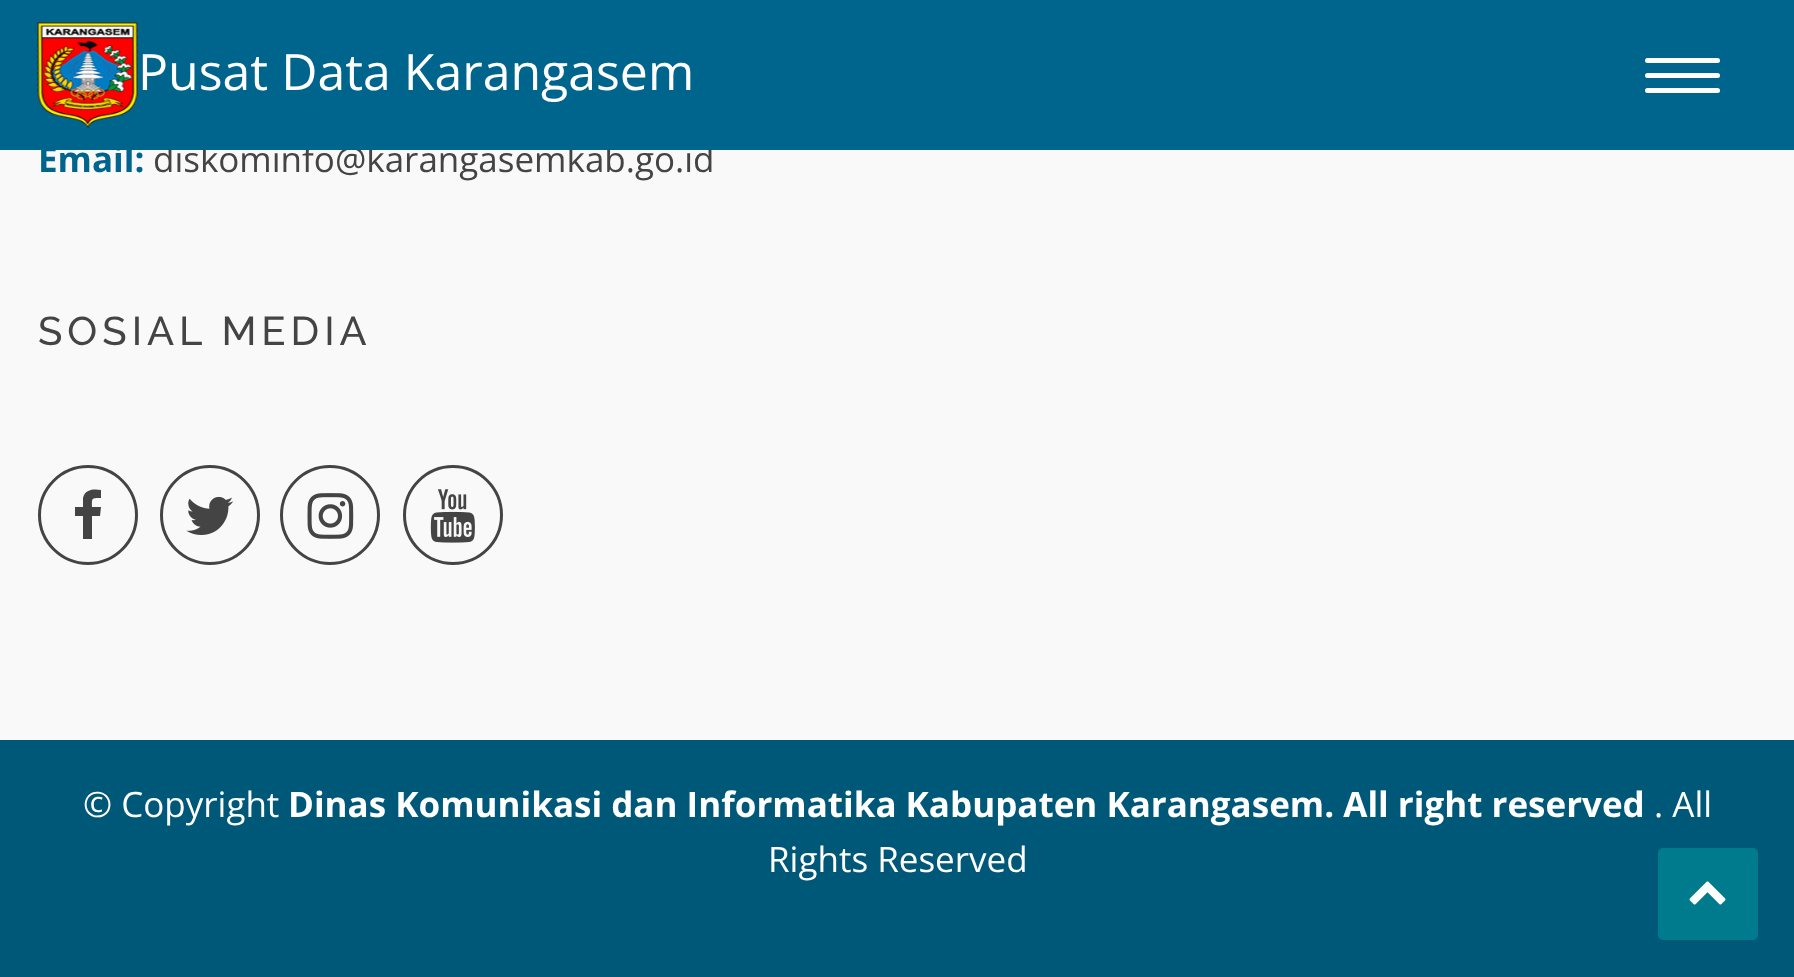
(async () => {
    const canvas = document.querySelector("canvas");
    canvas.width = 1794;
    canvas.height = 977;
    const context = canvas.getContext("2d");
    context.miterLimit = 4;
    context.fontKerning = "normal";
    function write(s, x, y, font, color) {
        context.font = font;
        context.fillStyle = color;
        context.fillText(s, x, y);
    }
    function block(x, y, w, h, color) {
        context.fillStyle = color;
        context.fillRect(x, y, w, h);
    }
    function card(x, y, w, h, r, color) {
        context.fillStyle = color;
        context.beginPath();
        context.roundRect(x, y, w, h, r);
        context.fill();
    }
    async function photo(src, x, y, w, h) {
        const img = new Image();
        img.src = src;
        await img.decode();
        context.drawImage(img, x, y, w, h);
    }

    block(0, 0, 1794, 977, "rgb(249, 249, 249)");
    write("diskominfo@karangasemkab.go.id", 153, 172, "35px Open Sans", "rgb(68, 68, 68)");
    block(0, 0, 1794, 150, "rgb(0, 101, 140)");
    await photo("media/1.png", 37, 22, 101, 106);
    write("Pusat Data Karangasem", 138, 90, "50px Open Sans", "rgb(255, 255, 255)");
    card(1645, 58, 75, 5, 2.5, "rgb(255, 255, 255)");
    card(1645, 73, 75, 5, 2.5, "rgb(255, 255, 255)");
    card(1645, 88, 75, 5, 2.5, "rgb(255, 255, 255)");
    write("Email:", 38, 172, "bold 35px Open Sans", "rgb(0, 101, 140)");
    context.letterSpacing = "5px";
    write("SOSIAL MEDIA", 38, 345, "500 40px Raleway", "rgb(68, 68, 68)");
    context.beginPath();
    context.arc(88, 515, 48.5, 0, Math.PI * 2);
    context.strokeStyle = "rgb(68, 68, 68)";
    context.lineWidth = 3;
    context.stroke();
    context.beginPath();
    context.moveTo(101, 490);
    context.lineTo(101, 498);
    context.bezierCurveTo(91, 498, 92, 498, 92, 507);
    context.lineTo(101, 507);
    context.lineTo(100, 516);
    context.lineTo(92, 516);
    context.lineTo(92, 539);
    context.lineTo(83, 539);
    context.lineTo(83, 516);
    context.lineTo(75, 516);
    context.lineTo(75, 507);
    context.lineTo(83, 507);
    context.lineTo(83, 498);
    context.bezierCurveTo(85, 489, 94, 489, 101, 490);
    context.closePath();
    context.fill();
    context.beginPath();
    context.arc(210, 515, 48.5, 0, Math.PI * 2);
    context.stroke();
    await photo("media/2.png", 186, 496, 48, 39);
    context.beginPath();
    context.arc(330, 515, 48.5, 0, Math.PI * 2);
    context.stroke();
    await photo("media/3.png", 307, 493, 47, 46);
    context.beginPath();
    context.arc(453, 515, 48.5, 0, Math.PI * 2);
    context.stroke();
    await photo("media/4.png", 430, 489, 45, 54);
    block(0, 740, 1794, 237, "rgb(0, 88, 121)");
    context.letterSpacing = "0px";
    write("© Copyright", 83, 817, "35px Open Sans", "rgb(255, 255, 255)");
    write("Dinas Komunikasi dan Informatika Kabupaten Karangasem. All right reserved", 288, 817, "bold 35px Open Sans", "rgb(255, 255, 255)");
    write(". All", 1654, 817, "35px Open Sans", "rgb(255, 255, 255)");
    write("Rights Reserved", 768, 872, "35px Open Sans", "rgb(255, 255, 255)");
    card(1658, 848, 100, 92, 5, "rgb(0, 123, 142)");
    await photo("media/5.png", 1689, 881, 37, 24);
})();
